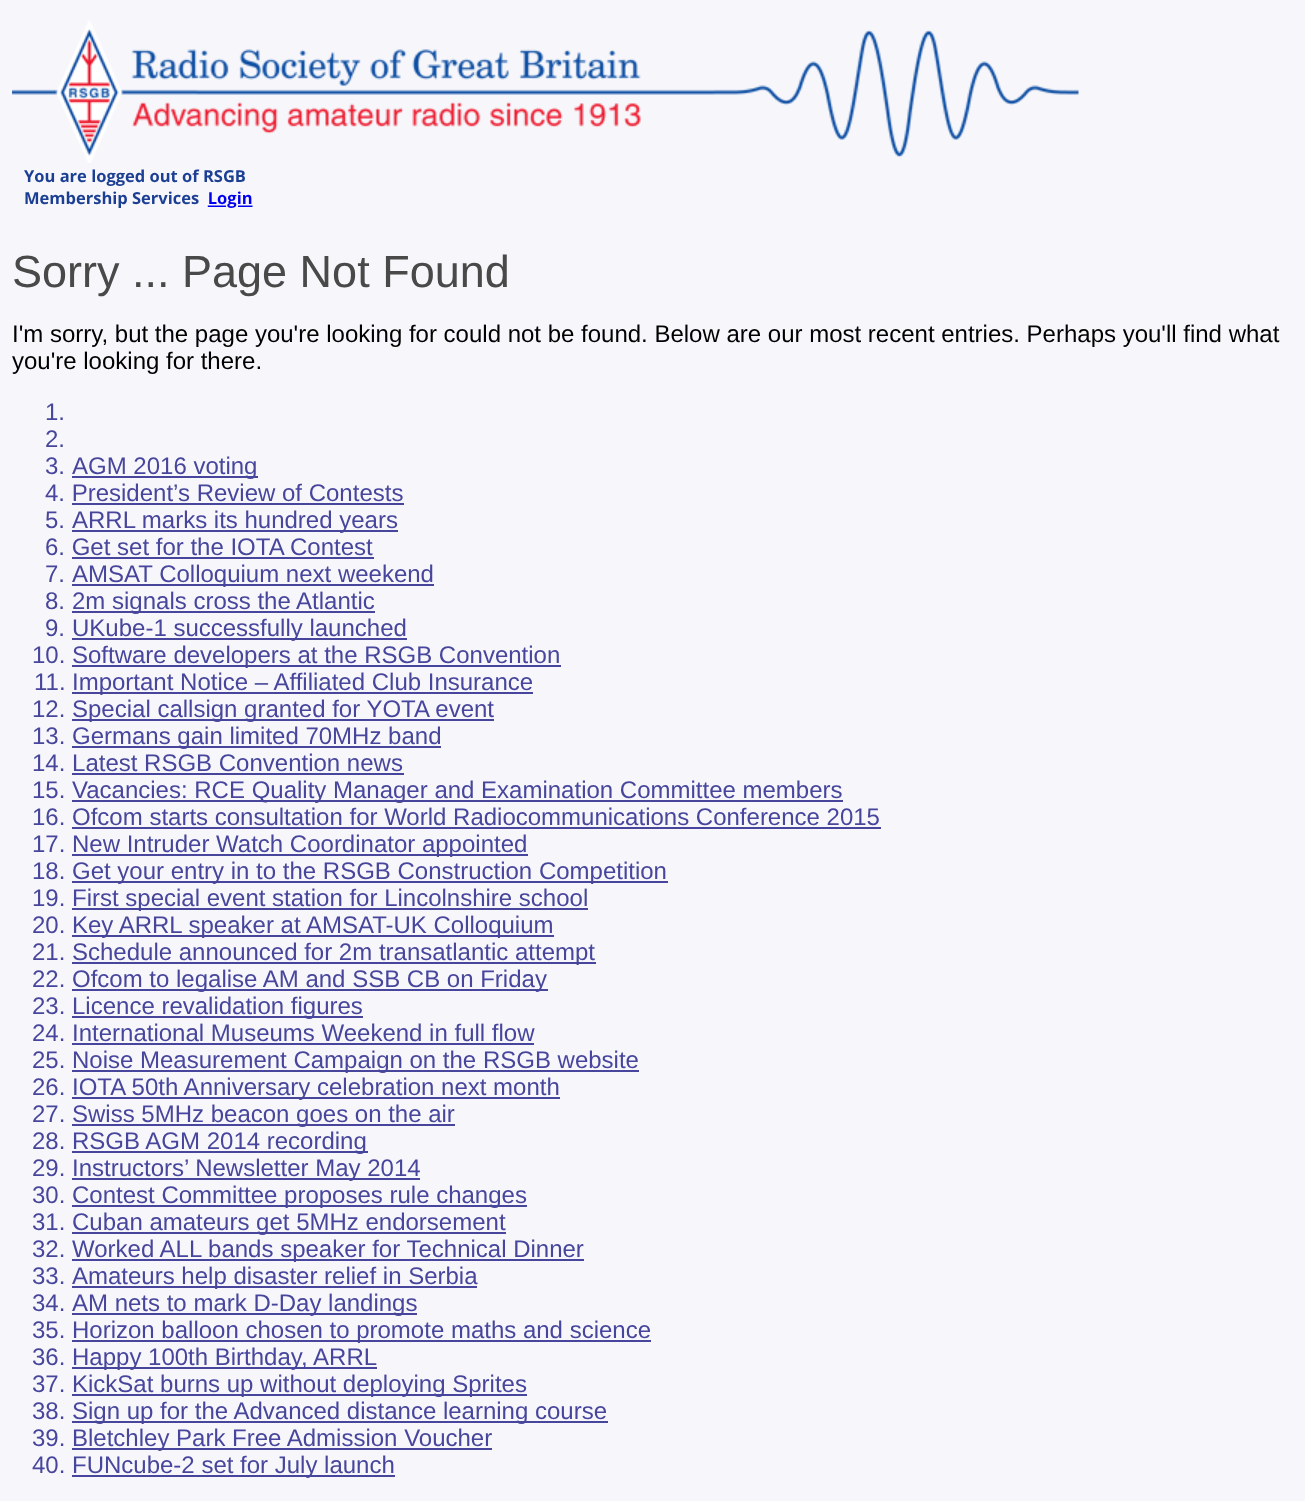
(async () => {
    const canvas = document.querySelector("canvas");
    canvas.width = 1305;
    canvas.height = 1501;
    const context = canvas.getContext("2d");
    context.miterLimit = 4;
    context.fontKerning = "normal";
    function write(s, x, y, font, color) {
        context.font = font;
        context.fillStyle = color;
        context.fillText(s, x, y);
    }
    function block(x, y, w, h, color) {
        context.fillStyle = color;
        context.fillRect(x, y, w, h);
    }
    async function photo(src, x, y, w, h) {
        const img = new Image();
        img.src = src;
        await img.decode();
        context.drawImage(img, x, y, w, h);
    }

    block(0, 0, 1305, 1501, "rgb(247, 247, 251)");
    await photo("media/1.png", 12, 20, 1067, 143);
    await photo("media/2.png", 24, 169, 229, 39);
    write("Sorry ... Page Not Found", 12, 287, "45px Liberation Sans", "rgb(73, 73, 73)");
    write("I'm sorry, but the page you're looking for could not be found. Below are our most recent entries. Perhaps you'll find what", 12, 342, "24px Liberation Sans", "rgb(0, 0, 0)");
    write("you're looking for there.", 12, 369, "24px Liberation Sans", "rgb(0, 0, 0)");
    write("1.", 45, 420, "24px Liberation Sans", "rgb(71, 70, 156)");
    write("2.", 45, 447, "24px Liberation Sans", "rgb(71, 70, 156)");
    write("3.", 45, 474, "24px Liberation Sans", "rgb(71, 70, 156)");
    block(72, 476, 186, 2, "rgb(71, 70, 156)");
    write("AGM 2016 voting", 72, 474, "24px Liberation Sans", "rgb(71, 70, 156)");
    write("4. President’s Review of Contests", 45, 501, "24px Liberation Sans", "rgb(71, 70, 156)");
    block(72, 503, 332, 2, "rgb(71, 70, 156)");
    write("5.", 45, 528, "24px Liberation Sans", "rgb(71, 70, 156)");
    block(72, 530, 326, 2, "rgb(71, 70, 156)");
    write("ARRL marks its hundred years", 72, 528, "24px Liberation Sans", "rgb(71, 70, 156)");
    write("6. Get set for the IOTA Contest", 45, 555, "24px Liberation Sans", "rgb(71, 70, 156)");
    block(72, 557, 302, 2, "rgb(71, 70, 156)");
    write("7.", 45, 582, "24px Liberation Sans", "rgb(71, 70, 156)");
    block(72, 584, 362, 2, "rgb(71, 70, 156)");
    write("AMSAT Colloquium next weekend", 72, 582, "24px Liberation Sans", "rgb(71, 70, 156)");
    write("8.", 45, 609, "24px Liberation Sans", "rgb(71, 70, 156)");
    block(72, 611, 303, 2, "rgb(71, 70, 156)");
    write("2m signals cross the Atlantic", 72, 609, "24px Liberation Sans", "rgb(71, 70, 156)");
    write("9.", 45, 636, "24px Liberation Sans", "rgb(71, 70, 156)");
    block(72, 638, 335, 2, "rgb(71, 70, 156)");
    write("UKube-1 successfully launched", 72, 636, "24px Liberation Sans", "rgb(71, 70, 156)");
    write("10.", 32, 663, "24px Liberation Sans", "rgb(71, 70, 156)");
    block(72, 665, 489, 2, "rgb(71, 70, 156)");
    write("Software developers at the RSGB Convention", 72, 663, "24px Liberation Sans", "rgb(71, 70, 156)");
    write("11.", 34, 690, "24px Liberation Sans", "rgb(71, 70, 156)");
    block(72, 692, 461, 2, "rgb(71, 70, 156)");
    write("Important Notice – Affiliated Club Insurance", 72, 690, "24px Liberation Sans", "rgb(71, 70, 156)");
    write("12.", 32, 717, "24px Liberation Sans", "rgb(71, 70, 156)");
    block(72, 719, 422, 2, "rgb(71, 70, 156)");
    write("Special callsign granted for YOTA event", 72, 717, "24px Liberation Sans", "rgb(71, 70, 156)");
    write("13.", 32, 744, "24px Liberation Sans", "rgb(71, 70, 156)");
    block(72, 746, 369, 2, "rgb(71, 70, 156)");
    write("Germans gain limited 70MHz band", 72, 744, "24px Liberation Sans", "rgb(71, 70, 156)");
    write("14. Latest RSGB Convention news", 32, 771, "24px Liberation Sans", "rgb(71, 70, 156)");
    block(72, 773, 332, 2, "rgb(71, 70, 156)");
    write("15.", 32, 798, "24px Liberation Sans", "rgb(71, 70, 156)");
    block(72, 800, 771, 2, "rgb(71, 70, 156)");
    write("Vacancies: RCE Quality Manager and Examination Committee members", 72, 798, "24px Liberation Sans", "rgb(71, 70, 156)");
    write("16. Ofcom starts consultation for World Radiocommunications Conference 2015", 32, 825, "24px Liberation Sans", "rgb(71, 70, 156)");
    block(72, 827, 809, 2, "rgb(71, 70, 156)");
    write("17.", 32, 852, "24px Liberation Sans", "rgb(71, 70, 156)");
    block(72, 854, 456, 2, "rgb(71, 70, 156)");
    write("New Intruder Watch Coordinator appointed", 72, 852, "24px Liberation Sans", "rgb(71, 70, 156)");
    write("18.", 32, 879, "24px Liberation Sans", "rgb(71, 70, 156)");
    block(72, 881, 596, 2, "rgb(71, 70, 156)");
    write("Get your entry in to the RSGB Construction Competition", 72, 879, "24px Liberation Sans", "rgb(71, 70, 156)");
    write("19.", 32, 906, "24px Liberation Sans", "rgb(71, 70, 156)");
    block(72, 908, 516, 2, "rgb(71, 70, 156)");
    write("First special event station for Lincolnshire school", 72, 906, "24px Liberation Sans", "rgb(71, 70, 156)");
    write("20.", 32, 933, "24px Liberation Sans", "rgb(71, 70, 156)");
    block(72, 935, 482, 2, "rgb(71, 70, 156)");
    write("Key ARRL speaker at AMSAT-UK Colloquium", 72, 933, "24px Liberation Sans", "rgb(71, 70, 156)");
    write("21.", 32, 960, "24px Liberation Sans", "rgb(71, 70, 156)");
    block(72, 962, 524, 2, "rgb(71, 70, 156)");
    write("Schedule announced for 2m transatlantic attempt", 72, 960, "24px Liberation Sans", "rgb(71, 70, 156)");
    write("22.", 32, 987, "24px Liberation Sans", "rgb(71, 70, 156)");
    block(72, 989, 476, 2, "rgb(71, 70, 156)");
    write("Ofcom to legalise AM and SSB CB on Friday", 72, 987, "24px Liberation Sans", "rgb(71, 70, 156)");
    write("23.", 32, 1014, "24px Liberation Sans", "rgb(71, 70, 156)");
    block(72, 1016, 291, 2, "rgb(71, 70, 156)");
    write("Licence revalidation figures", 72, 1014, "24px Liberation Sans", "rgb(71, 70, 156)");
    write("24. International Museums Weekend in full flow", 32, 1041, "24px Liberation Sans", "rgb(71, 70, 156)");
    block(72, 1043, 462, 2, "rgb(71, 70, 156)");
    write("25.", 32, 1068, "24px Liberation Sans", "rgb(71, 70, 156)");
    block(72, 1070, 567, 2, "rgb(71, 70, 156)");
    write("Noise Measurement Campaign on the RSGB website", 72, 1068, "24px Liberation Sans", "rgb(71, 70, 156)");
    write("26.", 32, 1095, "24px Liberation Sans", "rgb(71, 70, 156)");
    block(72, 1097, 488, 2, "rgb(71, 70, 156)");
    write("IOTA 50th Anniversary celebration next month", 72, 1095, "24px Liberation Sans", "rgb(71, 70, 156)");
    write("27.", 32, 1122, "24px Liberation Sans", "rgb(71, 70, 156)");
    block(72, 1124, 383, 2, "rgb(71, 70, 156)");
    write("Swiss 5MHz beacon goes on the air", 72, 1122, "24px Liberation Sans", "rgb(71, 70, 156)");
    write("28.", 32, 1149, "24px Liberation Sans", "rgb(71, 70, 156)");
    block(72, 1151, 296, 2, "rgb(71, 70, 156)");
    write("RSGB AGM 2014 recording", 72, 1149, "24px Liberation Sans", "rgb(71, 70, 156)");
    write("29.", 32, 1176, "24px Liberation Sans", "rgb(71, 70, 156)");
    block(72, 1178, 348, 2, "rgb(71, 70, 156)");
    write("Instructors’ Newsletter May 2014", 72, 1176, "24px Liberation Sans", "rgb(71, 70, 156)");
    write("30.", 32, 1203, "24px Liberation Sans", "rgb(71, 70, 156)");
    block(72, 1205, 455, 2, "rgb(71, 70, 156)");
    write("Contest Committee proposes rule changes", 72, 1203, "24px Liberation Sans", "rgb(71, 70, 156)");
    write("31.", 32, 1230, "24px Liberation Sans", "rgb(71, 70, 156)");
    block(72, 1232, 434, 2, "rgb(71, 70, 156)");
    write("Cuban amateurs get 5MHz endorsement", 72, 1230, "24px Liberation Sans", "rgb(71, 70, 156)");
    write("32.", 32, 1257, "24px Liberation Sans", "rgb(71, 70, 156)");
    block(72, 1259, 512, 2, "rgb(71, 70, 156)");
    write("Worked ALL bands speaker for Technical Dinner", 72, 1257, "24px Liberation Sans", "rgb(71, 70, 156)");
    write("33.", 32, 1284, "24px Liberation Sans", "rgb(71, 70, 156)");
    block(72, 1286, 405, 2, "rgb(71, 70, 156)");
    write("Amateurs help disaster relief in Serbia", 72, 1284, "24px Liberation Sans", "rgb(71, 70, 156)");
    write("34.", 32, 1311, "24px Liberation Sans", "rgb(71, 70, 156)");
    block(72, 1313, 345, 2, "rgb(71, 70, 156)");
    write("AM nets to mark D-Day landings", 72, 1311, "24px Liberation Sans", "rgb(71, 70, 156)");
    write("35.", 32, 1338, "24px Liberation Sans", "rgb(71, 70, 156)");
    block(72, 1340, 579, 2, "rgb(71, 70, 156)");
    write("Horizon balloon chosen to promote maths and science", 72, 1338, "24px Liberation Sans", "rgb(71, 70, 156)");
    write("36.", 32, 1365, "24px Liberation Sans", "rgb(71, 70, 156)");
    block(72, 1367, 305, 2, "rgb(71, 70, 156)");
    write("Happy 100th Birthday, ARRL", 72, 1365, "24px Liberation Sans", "rgb(71, 70, 156)");
    write("37.", 32, 1392, "24px Liberation Sans", "rgb(71, 70, 156)");
    block(72, 1394, 455, 2, "rgb(71, 70, 156)");
    write("KickSat burns up without deploying Sprites", 72, 1392, "24px Liberation Sans", "rgb(71, 70, 156)");
    write("38.", 32, 1419, "24px Liberation Sans", "rgb(71, 70, 156)");
    block(72, 1421, 536, 2, "rgb(71, 70, 156)");
    write("Sign up for the Advanced distance learning course", 72, 1419, "24px Liberation Sans", "rgb(71, 70, 156)");
    write("39.", 32, 1446, "24px Liberation Sans", "rgb(71, 70, 156)");
    block(72, 1448, 420, 2, "rgb(71, 70, 156)");
    write("Bletchley Park Free Admission Voucher", 72, 1446, "24px Liberation Sans", "rgb(71, 70, 156)");
    write("40.", 32, 1473, "24px Liberation Sans", "rgb(71, 70, 156)");
    block(72, 1475, 323, 2, "rgb(71, 70, 156)");
    write("FUNcube-2 set for July launch", 72, 1473, "24px Liberation Sans", "rgb(71, 70, 156)");
})();
